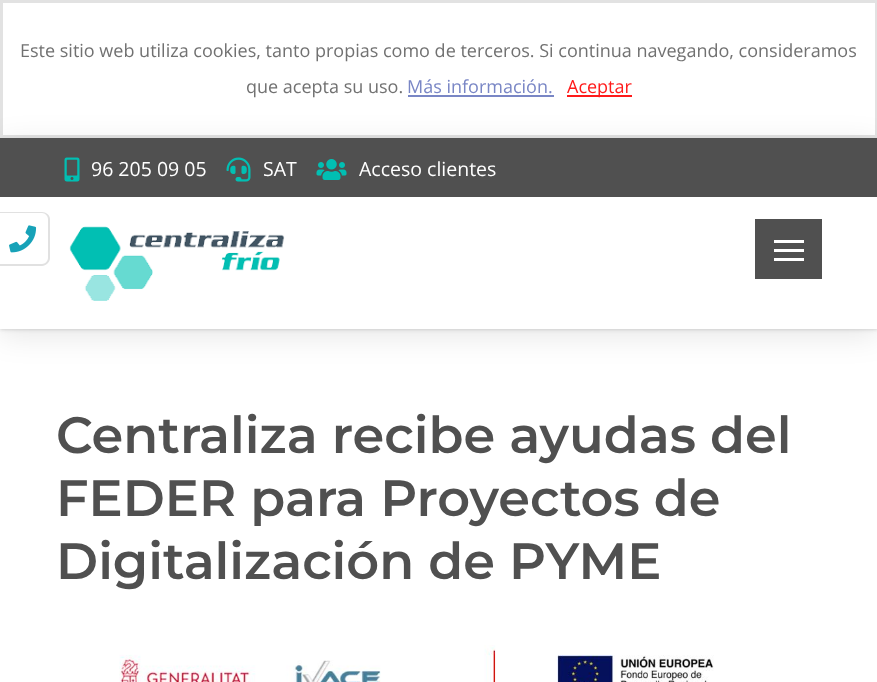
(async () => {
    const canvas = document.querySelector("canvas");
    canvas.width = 877;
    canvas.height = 682;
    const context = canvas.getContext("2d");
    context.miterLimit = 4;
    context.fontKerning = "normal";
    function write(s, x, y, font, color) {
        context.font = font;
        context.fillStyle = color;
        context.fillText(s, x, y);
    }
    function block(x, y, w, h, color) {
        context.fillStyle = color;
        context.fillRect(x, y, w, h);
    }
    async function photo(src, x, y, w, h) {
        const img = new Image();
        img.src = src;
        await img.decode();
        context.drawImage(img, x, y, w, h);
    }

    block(0, 0, 877, 682, "rgb(255, 255, 255)");
    context.strokeStyle = "rgb(226, 226, 226)";
    context.lineWidth = 3;
    context.strokeRect(1.5, 1.5, 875, 135);
    write("Este sitio web utiliza cookies, tanto propias como de terceros. Si continua navegando, consideramos", 20, 57, "18px Open Sans", "rgb(113, 113, 113)");
    write("que acepta su uso.", 246, 93, "18px Open Sans", "rgb(113, 113, 113)");
    write("Más información.", 407, 93, "18px Open Sans", "rgb(121, 134, 197)");
    block(408, 95, 146, 2, "rgb(121, 134, 197)");
    block(567, 95, 65, 2, "rgb(255, 26, 26)");
    write("Aceptar", 567, 93, "18px Open Sans", "rgb(255, 26, 26)");
    context.fillStyle = "rgb(225, 225, 225)";
    context.beginPath();
    context.moveTo(-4, 212);
    context.lineTo(42, 212);
    context.bezierCurveTo(46, 212, 50, 215, 50, 219);
    context.lineTo(50, 258);
    context.bezierCurveTo(50, 262, 46, 266, 42, 266);
    context.lineTo(-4, 266);
    context.closePath();
    context.moveTo(-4, 213);
    context.lineTo(42, 213);
    context.bezierCurveTo(45, 213, 48, 216, 48, 219);
    context.lineTo(48, 258);
    context.bezierCurveTo(48, 261, 45, 264, 42, 264);
    context.lineTo(-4, 264);
    context.closePath();
    context.fill("evenodd");
    await photo("media/5.png", 9, 225, 28, 28);
    context.save();
    context.beginPath();
    context.moveTo(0, 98);
    context.lineTo(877, 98);
    context.lineTo(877, 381);
    context.lineTo(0, 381);
    context.closePath();
    context.moveTo(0, 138);
    context.lineTo(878, 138);
    context.lineTo(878, 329);
    context.lineTo(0, 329);
    context.closePath();
    context.clip("evenodd");
    context.fillStyle = "rgba(0, 0, 0, 0.1)";
    context.filter = "blur(15px)";
    context.beginPath();
    context.rect(0, 144, 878, 191);
    context.fill();
    context.filter = "none";
    context.restore();
    context.save();
    context.beginPath();
    context.moveTo(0, 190);
    context.lineTo(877, 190);
    context.lineTo(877, 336);
    context.lineTo(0, 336);
    context.closePath();
    context.moveTo(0, 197);
    context.lineTo(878, 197);
    context.lineTo(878, 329);
    context.lineTo(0, 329);
    context.closePath();
    context.clip("evenodd");
    context.fillStyle = "rgba(0, 0, 0, 0.2)";
    context.filter = "blur(2px)";
    context.beginPath();
    context.rect(0, 197, 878, 132);
    context.fill();
    context.filter = "none";
    context.restore();
    block(0, 138, 877, 59, "rgb(80, 80, 80)");
    await photo("media/1.png", 64, 157, 16, 25);
    write("96 205 09 05", 91, 176, "19.5px Open Sans", "rgb(255, 255, 255)");
    await photo("media/2.png", 226, 157, 25, 25);
    write("SAT", 263, 176, "19.5px Open Sans", "rgb(255, 255, 255)");
    await photo("media/3.png", 316, 159, 31, 21);
    write("Acceso clientes", 359, 176, "19.5px Open Sans", "rgb(255, 255, 255)");
    await photo("media/4.png", 69, 226, 216, 75);
    block(755, 219, 67, 60, "rgb(80, 80, 80)");
    block(774, 240, 30, 3, "rgb(255, 255, 255)");
    block(774, 249, 30, 3, "rgb(255, 255, 255)");
    block(774, 258, 30, 3, "rgb(255, 255, 255)");
    write("Centraliza recibe ayudas del", 56, 453, "600 51px Montserrat", "rgb(80, 80, 80)");
    write("FEDER para Proyectos de", 56, 516, "600 51px Montserrat", "rgb(80, 80, 80)");
    write("Digitalización de PYME", 56, 579, "600 51px Montserrat", "rgb(80, 80, 80)");
    await photo("media/6.png", 119, 645, 595, 37);
})();
